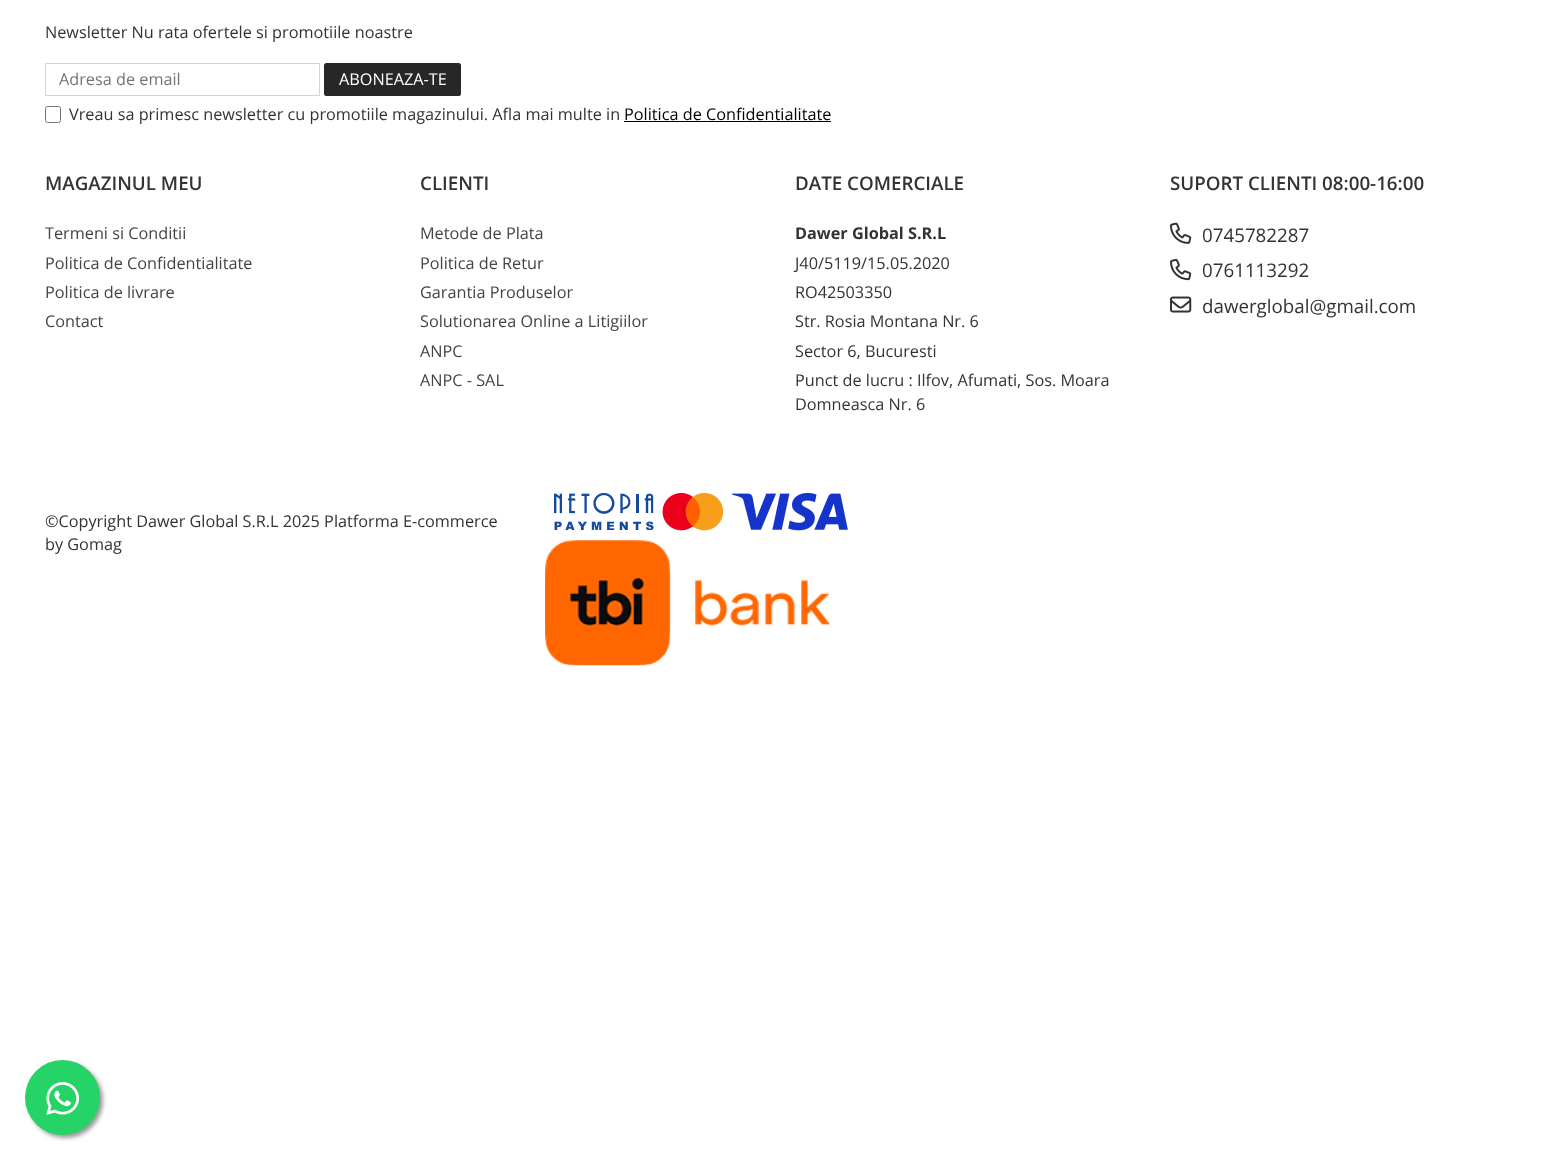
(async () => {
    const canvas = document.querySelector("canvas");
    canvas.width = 1552;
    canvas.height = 1159;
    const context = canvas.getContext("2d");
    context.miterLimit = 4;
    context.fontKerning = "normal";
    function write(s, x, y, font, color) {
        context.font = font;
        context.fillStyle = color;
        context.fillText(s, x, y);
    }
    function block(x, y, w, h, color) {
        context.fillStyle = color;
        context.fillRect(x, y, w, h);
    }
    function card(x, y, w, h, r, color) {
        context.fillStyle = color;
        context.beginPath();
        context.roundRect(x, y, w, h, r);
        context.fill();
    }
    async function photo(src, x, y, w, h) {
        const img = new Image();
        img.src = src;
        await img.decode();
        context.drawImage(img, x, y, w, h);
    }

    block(0, 0, 1552, 1159, "rgb(255, 255, 255)");
    write("Newsletter Nu rata ofertele si promotiile noastre", 45, 38, "16.25px Open Sans", "rgb(51, 51, 51)");
    context.strokeStyle = "rgb(213, 213, 213)";
    context.strokeRect(45.5, 63.5, 274, 32);
    write("Adresa de email", 59, 85, "16.25px Open Sans", "rgb(117, 117, 117)");
    card(324, 63, 137, 33, 2.5, "rgb(39, 39, 39)");
    write("ABONEAZA-TE", 339, 85, "16.25px Open Sans", "rgb(255, 255, 255)");
    context.beginPath();
    context.roundRect(45.5, 106.5, 15, 16, 2);
    context.strokeStyle = "rgb(118, 118, 118)";
    context.stroke();
    write("Vreau sa primesc newsletter cu promotiile magazinului. Afla mai multe in", 69, 120, "16.25px Open Sans", "rgb(51, 51, 51)");
    write("Politica de Confidentialitate", 624, 120, "16.25px Open Sans", "rgb(0, 0, 0)");
    block(624, 121, 207, 1, "rgb(0, 0, 0)");
    write("MAGAZINUL MEU", 45, 190, "600 18.75px Open Sans", "rgb(51, 51, 51)");
    write("Termeni si Conditii", 45, 239, "16.25px Open Sans", "rgb(68, 68, 68)");
    write("Politica de Confidentialitate", 45, 269, "16.25px Open Sans", "rgb(68, 68, 68)");
    write("Politica de livrare", 45, 298, "16.25px Open Sans", "rgb(68, 68, 68)");
    write("Contact", 45, 327, "16.25px Open Sans", "rgb(68, 68, 68)");
    write("CLIENTI", 420, 190, "600 18.75px Open Sans", "rgb(51, 51, 51)");
    write("Metode de Plata", 420, 239, "16.25px Open Sans", "rgb(68, 68, 68)");
    write("Politica de Retur", 420, 269, "16.25px Open Sans", "rgb(68, 68, 68)");
    write("Garantia Produselor", 420, 298, "16.25px Open Sans", "rgb(68, 68, 68)");
    write("Solutionarea Online a Litigiilor", 420, 327, "16.25px Open Sans", "rgb(68, 68, 68)");
    write("ANPC", 420, 357, "16.25px Open Sans", "rgb(68, 68, 68)");
    write("ANPC - SAL", 420, 386, "16.25px Open Sans", "rgb(68, 68, 68)");
    write("DATE COMERCIALE", 795, 190, "600 18.75px Open Sans", "rgb(51, 51, 51)");
    write("Dawer Global S.R.L", 795, 239, "bold 16.25px Open Sans", "rgb(51, 51, 51)");
    write("J40/5119/15.05.2020", 795, 269, "16.25px Open Sans", "rgb(51, 51, 51)");
    write("RO42503350", 795, 298, "16.25px Open Sans", "rgb(51, 51, 51)");
    write("Str. Rosia Montana Nr. 6", 795, 327, "16.25px Open Sans", "rgb(51, 51, 51)");
    write("Sector 6, Bucuresti", 795, 357, "16.25px Open Sans", "rgb(51, 51, 51)");
    write("Punct de lucru : Ilfov, Afumati, Sos. Moara", 795, 386, "16.25px Open Sans", "rgb(51, 51, 51)");
    write("Domneasca Nr. 6", 795, 410, "16.25px Open Sans", "rgb(51, 51, 51)");
    write("SUPORT CLIENTI 08:00-16:00", 1170, 190, "600 18.75px Open Sans", "rgb(51, 51, 51)");
    await photo("media/1.png", 1170, 222, 22, 22);
    write("0745782287", 1202, 242, "18.75px Open Sans", "rgb(51, 51, 51)");
    await photo("media/2.png", 1170, 258, 22, 23);
    write("0761113292", 1202, 277, "18.75px Open Sans", "rgb(51, 51, 51)");
    await photo("media/3.png", 1170, 296, 22, 17);
    write("dawerglobal@gmail.com", 1202, 313, "18.75px Open Sans", "rgb(51, 51, 51)");
    write("©Copyright Dawer Global S.R.L 2025 Platforma E-commerce", 45, 527, "16.25px Open Sans", "rgb(51, 51, 51)");
    write("by Gomag", 45, 550, "16.25px Open Sans", "rgb(51, 51, 51)");
    await photo("media/4.png", 554, 492, 294, 39);
    await photo("media/5.png", 545, 540, 285, 126);
    context.fillStyle = "rgb(153, 153, 153)";
    context.filter = "blur(2px)";
    context.beginPath();
    context.roundRect(28, 1063, 75, 75, 37.5);
    context.fill();
    context.filter = "none";
    context.fillStyle = "rgb(37, 211, 102)";
    context.beginPath();
    context.arc(62.5, 1097.5, 37.5, 0, Math.PI * 2);
    context.fill();
    await photo("media/6.png", 46, 1082, 34, 33);
})();
